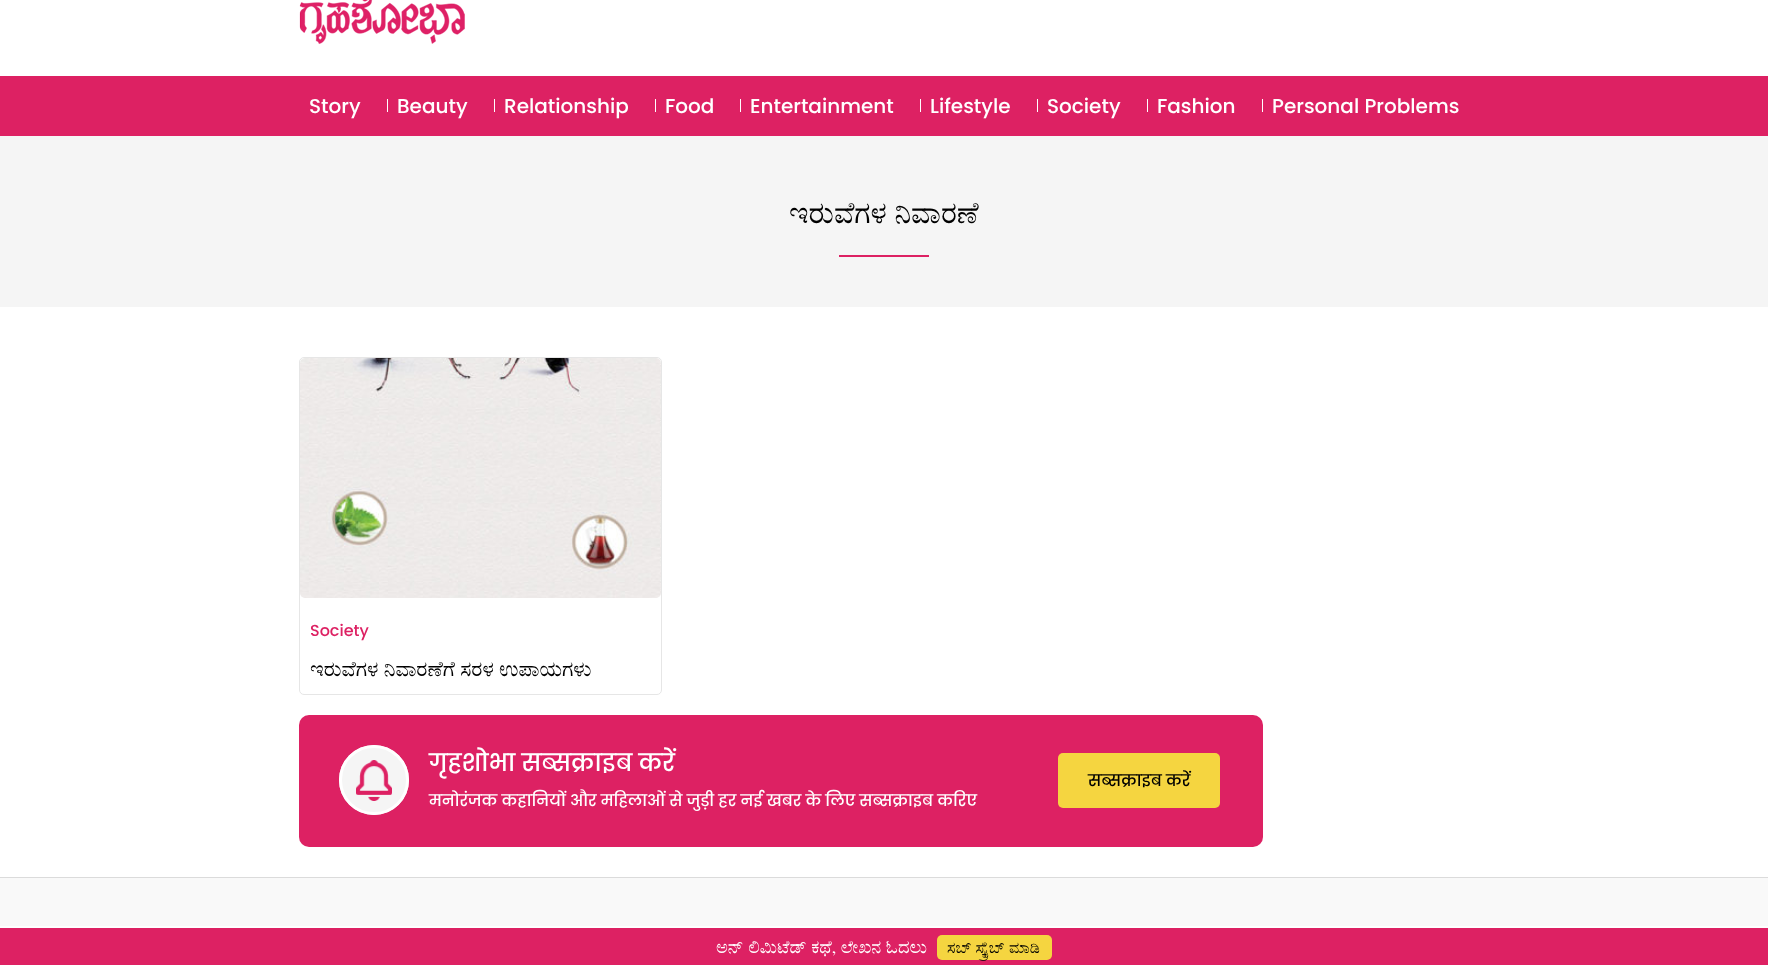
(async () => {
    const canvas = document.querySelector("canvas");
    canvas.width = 1768;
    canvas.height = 965;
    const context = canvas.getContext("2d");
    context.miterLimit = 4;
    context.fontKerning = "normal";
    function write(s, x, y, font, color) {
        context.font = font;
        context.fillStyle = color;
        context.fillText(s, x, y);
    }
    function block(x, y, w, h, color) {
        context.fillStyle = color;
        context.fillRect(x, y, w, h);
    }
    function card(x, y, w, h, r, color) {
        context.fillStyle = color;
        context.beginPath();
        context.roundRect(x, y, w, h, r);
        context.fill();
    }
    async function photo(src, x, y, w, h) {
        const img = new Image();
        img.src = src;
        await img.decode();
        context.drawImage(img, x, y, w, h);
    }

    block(0, 0, 1768, 965, "rgb(255, 255, 255)");
    await photo("media/1.png", 299, 0, 166, 44);
    block(0, 76, 1768, 60, "rgb(221, 33, 99)");
    write("Story", 309, 113, "500 20px Poppins", "rgb(255, 255, 255)");
    block(387, 99, 1, 13, "rgb(255, 255, 255)");
    write("Beauty", 397, 113, "500 20px Poppins", "rgb(255, 255, 255)");
    block(494, 99, 1, 13, "rgb(255, 255, 255)");
    write("Relationship", 504, 113, "500 20px Poppins", "rgb(255, 255, 255)");
    block(655, 99, 1, 13, "rgb(255, 255, 255)");
    write("Food", 665, 113, "500 20px Poppins", "rgb(255, 255, 255)");
    block(740, 99, 1, 13, "rgb(255, 255, 255)");
    write("Entertainment", 750, 113, "500 20px Poppins", "rgb(255, 255, 255)");
    block(920, 99, 1, 13, "rgb(255, 255, 255)");
    write("Lifestyle", 930, 113, "500 20px Poppins", "rgb(255, 255, 255)");
    block(1037, 99, 1, 13, "rgb(255, 255, 255)");
    write("Society", 1047, 113, "500 20px Poppins", "rgb(255, 255, 255)");
    block(1147, 99, 1, 13, "rgb(255, 255, 255)");
    write("Fashion", 1157, 113, "500 20px Poppins", "rgb(255, 255, 255)");
    block(1262, 99, 1, 13, "rgb(255, 255, 255)");
    write("Personal Problems", 1272, 113, "500 20px Poppins", "rgb(255, 255, 255)");
    block(0, 136, 1768, 171, "rgb(245, 245, 245)");
    write("ಇರುವೆಗಳ ನಿವಾರಣೆ", 789, 223, "30px FreeSerif", "rgb(0, 0, 0)");
    block(839, 255, 90, 2, "rgb(221, 33, 99)");
    context.beginPath();
    context.roundRect(299.5, 357.5, 362, 337, 4.5);
    context.strokeStyle = "rgb(230, 230, 230)";
    context.stroke();
    await photo("media/2.png", 300, 358, 361, 240);
    write("Society", 310, 636, "500 16px Poppins", "rgb(221, 33, 99)");
    write("ಇರುವೆಗಳ ನಿವಾರಣೆಗೆ ಸರಳ ಉಪಾಯಗಳು", 310, 676, "21px FreeSerif", "rgb(0, 0, 0)");
    card(299, 715, 964, 132, 10, "rgb(221, 33, 99)");
    context.fillStyle = "rgb(245, 245, 245)";
    context.beginPath();
    context.arc(374, 780, 35, 0, Math.PI * 2);
    context.fill();
    await photo("media/3.png", 356, 760, 36, 41);
    context.beginPath();
    context.arc(374, 780, 33.5, 0, Math.PI * 2);
    context.strokeStyle = "rgb(255, 255, 255)";
    context.lineWidth = 3;
    context.stroke();
    write("गृहशोभा सब्सक्राइब करें", 429, 771, "500 24px Poppins", "rgb(255, 255, 255)");
    card(1058, 753, 162, 55, 5, "rgb(245, 213, 64)");
    write("सब्सक्राइब करें", 1088, 786, "500 16px Poppins", "rgb(0, 0, 0)");
    write("मनोरंजक कहानियों और महिलाओं से जुड़ी हर नई खबर के लिए सब्सक्राइब करिए", 429, 806, "500 16px Poppins", "rgb(255, 255, 255)");
    block(0, 878, 1768, 48, "rgb(249, 249, 249)");
    block(0, 877, 1768, 1, "rgb(219, 219, 219)");
    block(0, 928, 1768, 37, "rgb(221, 33, 99)");
    write("ಅನ್ ಲಿಮಿಟೆಡ್ ಕಥೆ, ಲೇಖನ ಓದಲು", 716, 953, "18px FreeSerif", "rgb(255, 255, 255)");
    card(937, 935, 115, 25, 5, "rgb(245, 213, 64)");
    write("ಸಬ್ ಸ್ಕ್ರೈಬ್ ಮಾಡಿ", 947, 953, "16px FreeSerif", "rgb(0, 0, 0)");
})();
